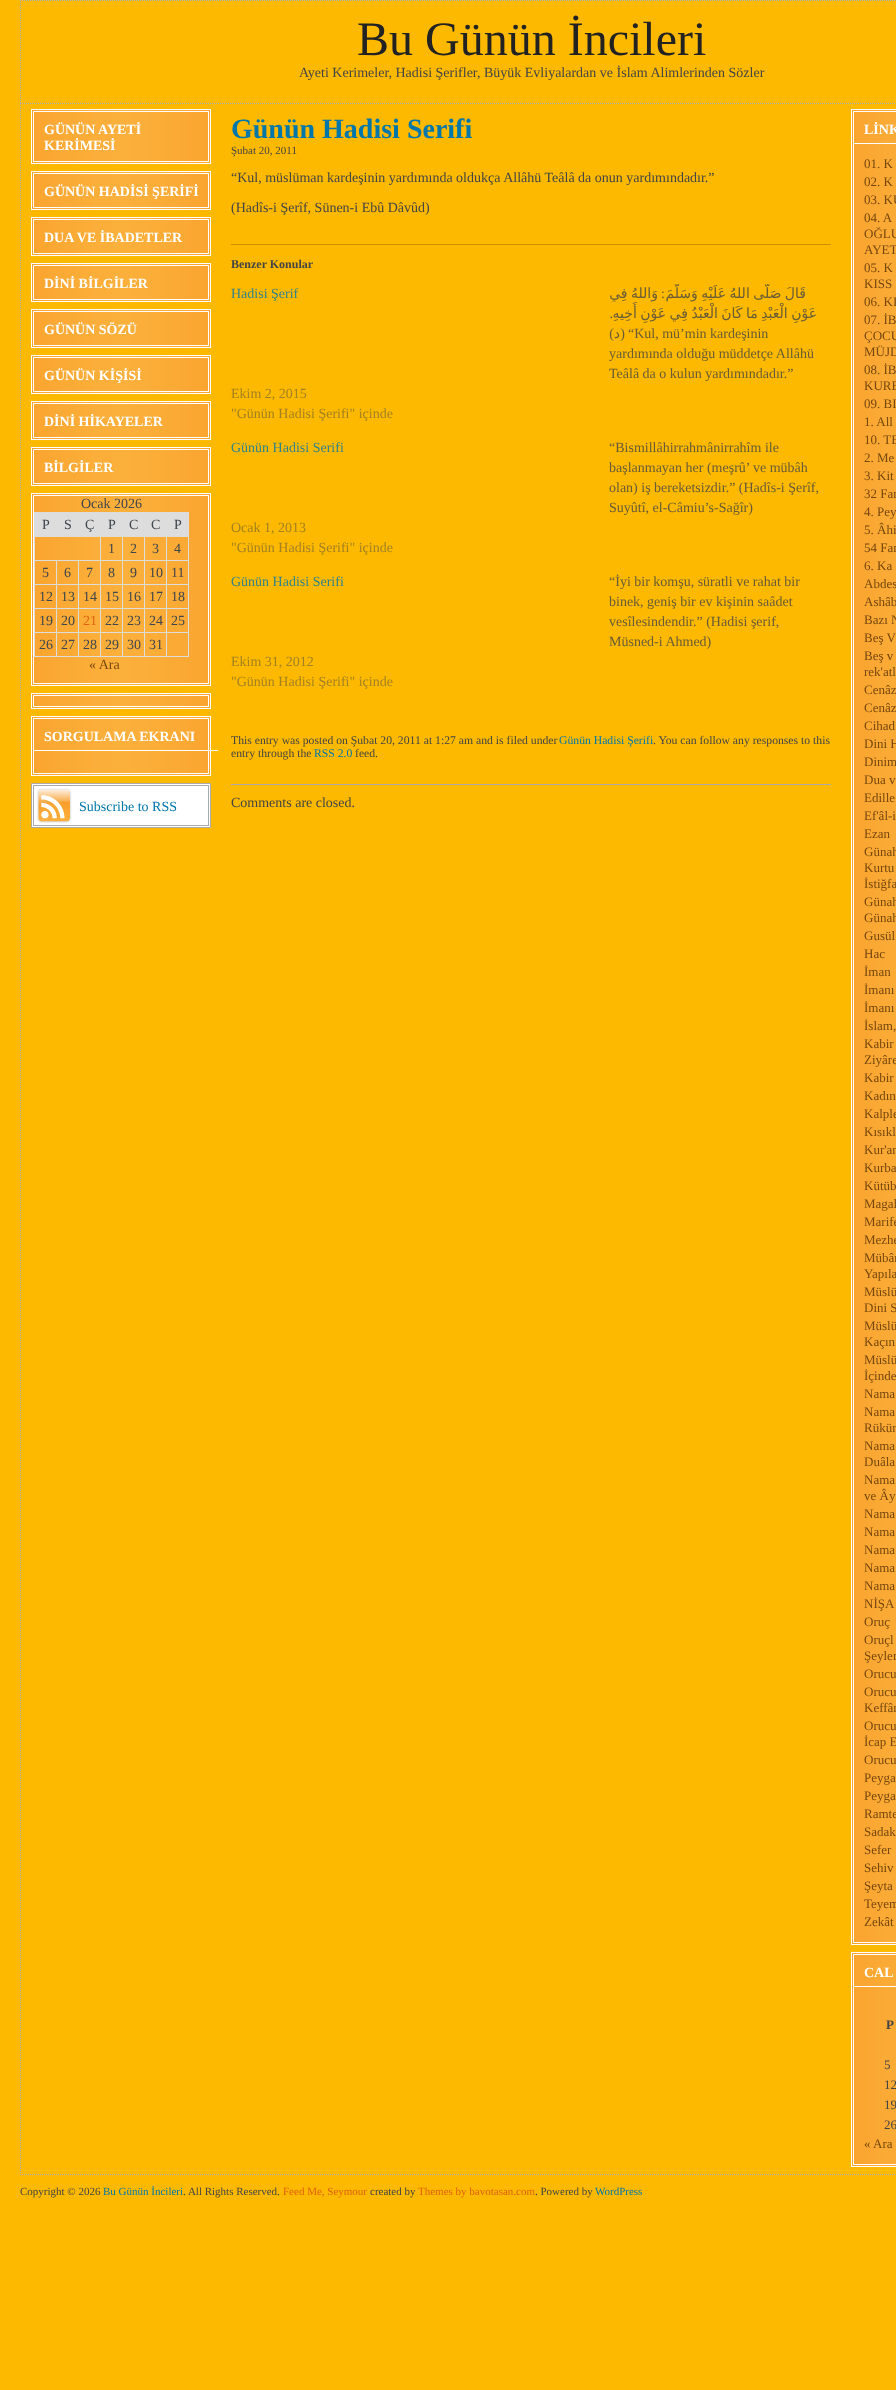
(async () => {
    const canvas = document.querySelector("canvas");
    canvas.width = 896;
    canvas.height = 2390;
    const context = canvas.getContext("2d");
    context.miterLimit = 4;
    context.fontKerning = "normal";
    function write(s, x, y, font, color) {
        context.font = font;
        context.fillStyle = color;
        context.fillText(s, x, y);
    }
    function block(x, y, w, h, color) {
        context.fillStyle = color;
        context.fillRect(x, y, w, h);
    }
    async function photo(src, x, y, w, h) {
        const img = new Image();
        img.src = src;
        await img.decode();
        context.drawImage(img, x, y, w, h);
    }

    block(0, 0, 896, 2390, "rgb(252, 185, 0)");
    context.beginPath();
    context.moveTo(20, 0.5);
    context.lineTo(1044, 0.5);
    context.strokeStyle = "rgb(170, 170, 170)";
    context.setLineDash([1, 1]);
    context.stroke();
    context.beginPath();
    context.moveTo(20, 103.5);
    context.lineTo(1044, 103.5);
    context.stroke();
    context.beginPath();
    context.moveTo(20.5, 0);
    context.lineTo(20.5, 104);
    context.stroke();
    write("Bu Günün İncileri", 357, 55, "48px Liberation Serif", "rgb(34, 34, 34)");
    write("Ayeti Kerimeler, Hadisi Şerifler, Büyük Evliyalardan ve İslam Alimlerinden Sözler", 299, 77, "14px Liberation Serif", "rgb(68, 68, 68)");
    context.beginPath();
    context.moveTo(20, 2174.5);
    context.lineTo(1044, 2174.5);
    context.stroke();
    context.beginPath();
    context.moveTo(20.5, 104);
    context.lineTo(20.5, 2175);
    context.stroke();
    await photo("media/1.png", 32, 110, 178, 53);
    context.strokeStyle = "rgb(255, 255, 255)";
    context.setLineDash([]);
    context.strokeRect(31.5, 109.5, 179, 54);
    context.strokeRect(33.5, 111.5, 175, 50);
    write("GÜNÜN AYETİ", 44, 134, "bold 14px Liberation Serif", "rgb(255, 255, 255)");
    write("KERİMESİ", 44, 150, "bold 14px Liberation Serif", "rgb(255, 255, 255)");
    await photo("media/2.png", 32, 172, 178, 37);
    context.strokeRect(31.5, 171.5, 179, 38);
    context.strokeRect(33.5, 173.5, 175, 34);
    write("GÜNÜN HADİSİ ŞERİFİ", 44, 196, "bold 14px Liberation Serif", "rgb(255, 255, 255)");
    await photo("media/2.png", 32, 218, 178, 37);
    context.strokeRect(31.5, 217.5, 179, 38);
    context.strokeRect(33.5, 219.5, 175, 34);
    write("DUA VE İBADETLER", 44, 242, "bold 14px Liberation Serif", "rgb(255, 255, 255)");
    await photo("media/2.png", 32, 264, 178, 37);
    context.strokeRect(31.5, 263.5, 179, 38);
    context.strokeRect(33.5, 265.5, 175, 34);
    write("DİNİ BİLGİLER", 44, 288, "bold 14px Liberation Serif", "rgb(255, 255, 255)");
    await photo("media/2.png", 32, 310, 178, 37);
    context.strokeRect(31.5, 309.5, 179, 38);
    context.strokeRect(33.5, 311.5, 175, 34);
    write("GÜNÜN SÖZÜ", 44, 334, "bold 14px Liberation Serif", "rgb(255, 255, 255)");
    await photo("media/2.png", 32, 356, 178, 37);
    context.strokeRect(31.5, 355.5, 179, 38);
    context.strokeRect(33.5, 357.5, 175, 34);
    write("GÜNÜN KİŞİSİ", 44, 380, "bold 14px Liberation Serif", "rgb(255, 255, 255)");
    await photo("media/2.png", 32, 402, 178, 37);
    context.strokeRect(31.5, 401.5, 179, 38);
    context.strokeRect(33.5, 403.5, 175, 34);
    write("DİNİ HİKAYELER", 44, 426, "bold 14px Liberation Serif", "rgb(255, 255, 255)");
    await photo("media/2.png", 32, 448, 178, 37);
    context.strokeRect(31.5, 447.5, 179, 38);
    context.strokeRect(33.5, 449.5, 175, 34);
    write("BİLGİLER", 44, 472, "bold 14px Liberation Serif", "rgb(255, 255, 255)");
    await photo("media/3.png", 32, 494, 178, 191);
    context.strokeRect(31.5, 493.5, 179, 192);
    context.strokeRect(33.5, 495.5, 175, 188);
    write("Ocak 2026", 81, 508, "14px Liberation Serif", "rgb(64, 70, 77)");
    block(35, 513, 66, 23, "rgb(221, 221, 221)");
    block(34, 512, 155, 1, "rgb(221, 221, 221)");
    block(166, 560, 23, 1, "rgb(221, 221, 221)");
    block(166, 584, 23, 1, "rgb(221, 221, 221)");
    block(166, 608, 23, 1, "rgb(221, 221, 221)");
    block(166, 632, 23, 1, "rgb(221, 221, 221)");
    block(188, 632, 1, 25, "rgb(221, 221, 221)");
    block(166, 656, 23, 1, "rgb(221, 221, 221)");
    block(166, 632, 1, 25, "rgb(221, 221, 221)");
    block(144, 632, 23, 1, "rgb(221, 221, 221)");
    block(166, 608, 1, 25, "rgb(221, 221, 221)");
    block(144, 608, 23, 1, "rgb(221, 221, 221)");
    block(166, 584, 1, 25, "rgb(221, 221, 221)");
    block(144, 584, 23, 1, "rgb(221, 221, 221)");
    block(166, 560, 1, 25, "rgb(221, 221, 221)");
    block(144, 560, 23, 1, "rgb(221, 221, 221)");
    block(144, 656, 23, 1, "rgb(221, 221, 221)");
    block(144, 632, 1, 25, "rgb(221, 221, 221)");
    block(122, 632, 23, 1, "rgb(221, 221, 221)");
    block(144, 608, 1, 25, "rgb(221, 221, 221)");
    block(122, 608, 23, 1, "rgb(221, 221, 221)");
    block(144, 584, 1, 25, "rgb(221, 221, 221)");
    block(122, 584, 23, 1, "rgb(221, 221, 221)");
    block(144, 560, 1, 25, "rgb(221, 221, 221)");
    block(122, 560, 23, 1, "rgb(221, 221, 221)");
    block(122, 656, 23, 1, "rgb(221, 221, 221)");
    block(122, 632, 1, 25, "rgb(221, 221, 221)");
    block(100, 632, 23, 1, "rgb(221, 221, 221)");
    block(122, 608, 1, 25, "rgb(221, 221, 221)");
    block(100, 608, 23, 1, "rgb(221, 221, 221)");
    block(122, 584, 1, 25, "rgb(221, 221, 221)");
    block(100, 584, 23, 1, "rgb(221, 221, 221)");
    block(122, 560, 1, 25, "rgb(221, 221, 221)");
    block(100, 560, 23, 1, "rgb(221, 221, 221)");
    block(100, 656, 23, 1, "rgb(221, 221, 221)");
    block(100, 632, 1, 25, "rgb(221, 221, 221)");
    block(78, 632, 23, 1, "rgb(221, 221, 221)");
    block(100, 608, 1, 25, "rgb(221, 221, 221)");
    block(78, 608, 23, 1, "rgb(221, 221, 221)");
    block(100, 584, 1, 25, "rgb(221, 221, 221)");
    block(78, 584, 23, 1, "rgb(221, 221, 221)");
    block(100, 560, 1, 25, "rgb(221, 221, 221)");
    block(78, 560, 23, 1, "rgb(221, 221, 221)");
    block(100, 536, 1, 25, "rgb(221, 221, 221)");
    block(34, 536, 67, 1, "rgb(221, 221, 221)");
    block(78, 656, 23, 1, "rgb(221, 221, 221)");
    block(78, 632, 1, 25, "rgb(221, 221, 221)");
    block(56, 632, 23, 1, "rgb(221, 221, 221)");
    block(78, 608, 1, 25, "rgb(221, 221, 221)");
    block(56, 608, 23, 1, "rgb(221, 221, 221)");
    block(78, 584, 1, 25, "rgb(221, 221, 221)");
    block(56, 584, 23, 1, "rgb(221, 221, 221)");
    block(78, 560, 1, 25, "rgb(221, 221, 221)");
    block(56, 560, 23, 1, "rgb(221, 221, 221)");
    block(56, 656, 23, 1, "rgb(221, 221, 221)");
    block(56, 632, 1, 25, "rgb(221, 221, 221)");
    block(34, 632, 23, 1, "rgb(221, 221, 221)");
    block(56, 608, 1, 25, "rgb(221, 221, 221)");
    block(34, 608, 23, 1, "rgb(221, 221, 221)");
    block(56, 584, 1, 25, "rgb(221, 221, 221)");
    block(34, 584, 23, 1, "rgb(221, 221, 221)");
    block(56, 560, 1, 25, "rgb(221, 221, 221)");
    block(34, 560, 23, 1, "rgb(221, 221, 221)");
    block(34, 656, 23, 1, "rgb(221, 221, 221)");
    block(34, 632, 1, 25, "rgb(221, 221, 221)");
    block(34, 608, 1, 25, "rgb(221, 221, 221)");
    block(34, 584, 1, 25, "rgb(221, 221, 221)");
    block(34, 560, 1, 25, "rgb(221, 221, 221)");
    block(34, 536, 1, 25, "rgb(221, 221, 221)");
    block(34, 512, 1, 25, "rgb(221, 221, 221)");
    write("P", 42, 529, "14px Liberation Serif", "rgb(64, 70, 77)");
    write("S", 64, 529, "14px Liberation Serif", "rgb(64, 70, 77)");
    write("Ç", 85, 529, "14px Liberation Serif", "rgb(64, 70, 77)");
    block(101, 513, 88, 24, "rgb(221, 221, 221)");
    write("P", 108, 529, "14px Liberation Serif", "rgb(64, 70, 77)");
    write("C", 129, 529, "14px Liberation Serif", "rgb(64, 70, 77)");
    write("C", 151, 529, "14px Liberation Serif", "rgb(64, 70, 77)");
    write("P", 174, 529, "14px Liberation Serif", "rgb(64, 70, 77)");
    write("1", 108, 553, "14px Liberation Serif", "rgb(64, 70, 77)");
    block(122, 536, 1, 25, "rgb(221, 221, 221)");
    write("2", 130, 553, "14px Liberation Serif", "rgb(64, 70, 77)");
    block(144, 536, 1, 25, "rgb(221, 221, 221)");
    write("3", 152, 553, "14px Liberation Serif", "rgb(64, 70, 77)");
    block(166, 536, 1, 25, "rgb(221, 221, 221)");
    write("4", 174, 553, "14px Liberation Serif", "rgb(64, 70, 77)");
    write("5", 42, 577, "14px Liberation Serif", "rgb(64, 70, 77)");
    write("6", 64, 577, "14px Liberation Serif", "rgb(64, 70, 77)");
    write("7", 86, 577, "14px Liberation Serif", "rgb(64, 70, 77)");
    write("8", 108, 577, "14px Liberation Serif", "rgb(64, 70, 77)");
    write("9", 130, 577, "14px Liberation Serif", "rgb(64, 70, 77)");
    write("10", 149, 577, "14px Liberation Serif", "rgb(64, 70, 77)");
    block(188, 608, 1, 25, "rgb(221, 221, 221)");
    block(188, 584, 1, 25, "rgb(221, 221, 221)");
    block(188, 536, 1, 49, "rgb(221, 221, 221)");
    write("11", 171, 577, "14px Liberation Serif", "rgb(64, 70, 77)");
    write("12", 39, 601, "14px Liberation Serif", "rgb(64, 70, 77)");
    write("13", 61, 601, "14px Liberation Serif", "rgb(64, 70, 77)");
    write("14", 83, 601, "14px Liberation Serif", "rgb(64, 70, 77)");
    write("15", 105, 601, "14px Liberation Serif", "rgb(64, 70, 77)");
    write("16", 127, 601, "14px Liberation Serif", "rgb(64, 70, 77)");
    write("17", 149, 601, "14px Liberation Serif", "rgb(64, 70, 77)");
    write("18", 171, 601, "14px Liberation Serif", "rgb(64, 70, 77)");
    write("19", 39, 625, "14px Liberation Serif", "rgb(64, 70, 77)");
    write("20", 61, 625, "14px Liberation Serif", "rgb(64, 70, 77)");
    write("21", 83, 625, "14px Liberation Serif", "rgb(224, 97, 16)");
    write("22", 105, 625, "14px Liberation Serif", "rgb(64, 70, 77)");
    write("23", 127, 625, "14px Liberation Serif", "rgb(64, 70, 77)");
    write("24", 149, 625, "14px Liberation Serif", "rgb(64, 70, 77)");
    write("25", 171, 625, "14px Liberation Serif", "rgb(64, 70, 77)");
    write("26", 39, 649, "14px Liberation Serif", "rgb(64, 70, 77)");
    write("27", 61, 649, "14px Liberation Serif", "rgb(64, 70, 77)");
    write("28", 83, 649, "14px Liberation Serif", "rgb(64, 70, 77)");
    write("29", 105, 649, "14px Liberation Serif", "rgb(64, 70, 77)");
    write("30", 127, 649, "14px Liberation Serif", "rgb(64, 70, 77)");
    write("31", 149, 649, "14px Liberation Serif", "rgb(64, 70, 77)");
    write("« Ara", 89, 669, "14px Liberation Serif", "rgb(119, 71, 15)");
    await photo("media/4.png", 32, 694, 178, 14);
    context.strokeRect(31.5, 693.5, 179, 15);
    context.strokeRect(33.5, 695.5, 175, 11);
    await photo("media/5.png", 32, 717, 178, 58);
    context.strokeRect(31.5, 716.5, 179, 59);
    context.strokeRect(33.5, 718.5, 175, 55);
    block(34, 750, 184, 1, "rgb(255, 255, 255)");
    write("SORGULAMA EKRANI", 44, 741, "bold 14px Liberation Serif", "rgb(255, 255, 255)");
    context.beginPath();
    context.rect(31.5, 783.5, 179, 44);
    context.fill();
    context.strokeStyle = "rgb(170, 170, 170)";
    context.stroke();
    context.strokeRect(33.5, 785.5, 175, 40);
    await photo("media/6.png", 36, 788, 36, 35);
    write("Subscribe to RSS", 79, 811, "14px Liberation Serif", "rgb(0, 119, 170)");
    block(231, 784, 600, 1, "rgb(170, 170, 170)");
    write("Günün Hadisi Serifi", 231, 138, "bold 28px Liberation Serif", "rgb(0, 119, 170)");
    write("Şubat 20, 2011", 231, 154, "11px Liberation Serif", "rgb(68, 68, 68)");
    write("“Kul, müslüman kardeşinin yardımında oldukça Allâhü Teâlâ da onun yardımındadır.”", 231, 182, "14px Liberation Serif", "rgb(68, 68, 68)");
    write("(Hadîs-i Şerîf, Sünen-i Ebû Dâvûd)", 231, 212, "14px Liberation Serif", "rgb(68, 68, 68)");
    block(231, 244, 600, 1, "rgb(202, 148, 0)");
    write("Benzer Konular", 231, 268, "bold 12px Liberation Serif", "rgb(68, 68, 68)");
    write("Hadisi Şerif", 231, 298, "14px Liberation Serif", "rgb(50, 132, 136)");
    context.wordSpacing = "-1px";
    context.direction = "rtl";
    write("وَاللهُ فِي", 658, 298, "14px DejaVu Sans", "rgb(105, 91, 54)");
    context.wordSpacing = "0px";
    write(":", 665, 298, "14px Liberation Serif", "rgb(105, 91, 54)");
    context.save();
    context.beginPath();
    context.rect(609, 284, 222, 100);
    context.clip();
    context.wordSpacing = "-1px";
    write("قَالَ صَلَّى اللهُ عَلَيْهِ وَسَلَّمَ", 806, 298, "14px DejaVu Sans", "rgb(105, 91, 54)");
    context.restore();
    write(".", 613, 318, "14px Liberation Serif", "rgb(105, 91, 54)");
    context.wordSpacing = "-1px";
    write("عَوْنِ الْعَبْدِ مَا كَانَ الْعَبْدُ فِي عَوْنِ أَخِيهِ", 817, 318, "14px DejaVu Sans", "rgb(105, 91, 54)");
    context.wordSpacing = "0px";
    write(")", 614, 338, "14px Liberation Serif", "rgb(105, 91, 54)");
    write("د", 620, 338, "14px DejaVu Sans", "rgb(105, 91, 54)");
    write("(", 625, 338, "14px Liberation Serif", "rgb(105, 91, 54)");
    context.direction = "ltr";
    write("“Kul, mü’min kardeşinin", 628, 338, "14px Liberation Serif", "rgb(105, 91, 54)");
    write("yardımında olduğu müddetçe Allâhü", 609, 358, "14px Liberation Serif", "rgb(105, 91, 54)");
    write("Teâlâ da o kulun yardımındadır.”", 609, 378, "14px Liberation Serif", "rgb(105, 91, 54)");
    write("Ekim 2, 2015", 231, 398, "14px Liberation Serif", "rgb(164, 129, 33)");
    write("\"Günün Hadisi Şerifi\" içinde", 231, 418, "14px Liberation Serif", "rgb(164, 129, 33)");
    write("Günün Hadisi Serifi", 231, 452, "14px Liberation Serif", "rgb(50, 132, 136)");
    write("“Bismillâhirrahmânirrahîm ile", 609, 452, "14px Liberation Serif", "rgb(105, 91, 54)");
    write("başlanmayan her (meşrû’ ve mübâh", 609, 472, "14px Liberation Serif", "rgb(105, 91, 54)");
    write("olan) iş bereketsizdir.” (Hadîs-i Şerîf,", 609, 492, "14px Liberation Serif", "rgb(105, 91, 54)");
    write("Suyûtî, el-Câmiu’s-Sağîr)", 609, 512, "14px Liberation Serif", "rgb(105, 91, 54)");
    write("Ocak 1, 2013", 231, 532, "14px Liberation Serif", "rgb(164, 129, 33)");
    write("\"Günün Hadisi Şerifi\" içinde", 231, 552, "14px Liberation Serif", "rgb(164, 129, 33)");
    write("Günün Hadisi Serifi", 231, 586, "14px Liberation Serif", "rgb(50, 132, 136)");
    write("“İyi bir komşu, süratli ve rahat bir", 609, 586, "14px Liberation Serif", "rgb(105, 91, 54)");
    write("binek, geniş bir ev kişinin saâdet", 609, 606, "14px Liberation Serif", "rgb(105, 91, 54)");
    write("vesîlesindendir.” (Hadisi şerif,", 609, 626, "14px Liberation Serif", "rgb(105, 91, 54)");
    write("Müsned-i Ahmed)", 609, 646, "14px Liberation Serif", "rgb(105, 91, 54)");
    write("Ekim 31, 2012", 231, 666, "14px Liberation Serif", "rgb(164, 129, 33)");
    write("\"Günün Hadisi Şerifi\" içinde", 231, 686, "14px Liberation Serif", "rgb(164, 129, 33)");
    write("This entry was posted on Şubat 20, 2011 at 1:27 am and is filed under", 231, 744, "11.7px Liberation Serif", "rgb(68, 68, 68)");
    write("Günün Hadisi Şerifi", 559, 744, "11.7px Liberation Serif", "rgb(0, 119, 170)");
    write(". You can follow any responses to this", 653, 744, "11.7px Liberation Serif", "rgb(68, 68, 68)");
    write("entry through the", 231, 757, "11.7px Liberation Serif", "rgb(68, 68, 68)");
    write("RSS 2.0", 314, 757, "11.7px Liberation Serif", "rgb(0, 119, 170)");
    write("feed.", 355, 757, "11.7px Liberation Serif", "rgb(68, 68, 68)");
    write("Comments are closed.", 231, 807, "14px Liberation Serif", "rgb(68, 68, 68)");
    await photo("media/7.png", 852, 110, 44, 1834);
    context.strokeStyle = "rgb(255, 255, 255)";
    context.strokeRect(851.5, 109.5, 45, 1835);
    context.strokeRect(853.5, 111.5, 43, 1831);
    block(854, 143, 42, 1, "rgb(255, 255, 255)");
    write("LİNK", 864, 134, "bold 14px Liberation Serif", "rgb(255, 255, 255)");
    write("01. K", 864, 168, "13px Liberation Serif", "rgb(119, 71, 15)");
    write("02. K", 864, 186, "13px Liberation Serif", "rgb(119, 71, 15)");
    write("03. KU", 864, 204, "13px Liberation Serif", "rgb(119, 71, 15)");
    write("04. A", 864, 222, "13px Liberation Serif", "rgb(119, 71, 15)");
    write("OĞLU", 864, 238, "13px Liberation Serif", "rgb(119, 71, 15)");
    write("AYET", 864, 254, "13px Liberation Serif", "rgb(119, 71, 15)");
    write("05. K", 864, 272, "13px Liberation Serif", "rgb(119, 71, 15)");
    write("KISS", 864, 288, "13px Liberation Serif", "rgb(119, 71, 15)");
    write("06. KI", 864, 306, "13px Liberation Serif", "rgb(119, 71, 15)");
    write("07. İB", 864, 324, "13px Liberation Serif", "rgb(119, 71, 15)");
    write("ÇOCU", 864, 340, "13px Liberation Serif", "rgb(119, 71, 15)");
    write("MÜJD", 864, 356, "13px Liberation Serif", "rgb(119, 71, 15)");
    write("08. İB", 864, 374, "13px Liberation Serif", "rgb(119, 71, 15)");
    write("KURB", 864, 390, "13px Liberation Serif", "rgb(119, 71, 15)");
    write("09. BI", 864, 408, "13px Liberation Serif", "rgb(119, 71, 15)");
    write("1. All", 864, 426, "13px Liberation Serif", "rgb(119, 71, 15)");
    write("10. TE", 864, 444, "13px Liberation Serif", "rgb(119, 71, 15)");
    write("2. Me", 864, 462, "13px Liberation Serif", "rgb(119, 71, 15)");
    write("3. Kit", 864, 480, "13px Liberation Serif", "rgb(119, 71, 15)");
    write("32 Far", 864, 498, "13px Liberation Serif", "rgb(119, 71, 15)");
    write("4. Pey", 864, 516, "13px Liberation Serif", "rgb(119, 71, 15)");
    write("5. Âhi", 864, 534, "13px Liberation Serif", "rgb(119, 71, 15)");
    write("54 Far", 864, 552, "13px Liberation Serif", "rgb(119, 71, 15)");
    write("6. Ka", 864, 570, "13px Liberation Serif", "rgb(119, 71, 15)");
    write("Abdes", 864, 588, "13px Liberation Serif", "rgb(119, 71, 15)");
    write("Ashâb", 864, 606, "13px Liberation Serif", "rgb(119, 71, 15)");
    write("Bazı N", 864, 624, "13px Liberation Serif", "rgb(119, 71, 15)");
    write("Beş V", 864, 642, "13px Liberation Serif", "rgb(119, 71, 15)");
    write("Beş v", 864, 660, "13px Liberation Serif", "rgb(119, 71, 15)");
    write("rek'atl", 864, 676, "13px Liberation Serif", "rgb(119, 71, 15)");
    write("Cenâz", 864, 694, "13px Liberation Serif", "rgb(119, 71, 15)");
    write("Cenâz", 864, 712, "13px Liberation Serif", "rgb(119, 71, 15)");
    write("Cihad", 864, 730, "13px Liberation Serif", "rgb(119, 71, 15)");
    write("Dini H", 864, 748, "13px Liberation Serif", "rgb(119, 71, 15)");
    write("Dinim", 864, 766, "13px Liberation Serif", "rgb(119, 71, 15)");
    write("Dua v", 864, 784, "13px Liberation Serif", "rgb(119, 71, 15)");
    write("Edille", 864, 802, "13px Liberation Serif", "rgb(119, 71, 15)");
    write("Ef'âl-i", 864, 820, "13px Liberation Serif", "rgb(119, 71, 15)");
    write("Ezan", 864, 838, "13px Liberation Serif", "rgb(119, 71, 15)");
    write("Günah", 864, 856, "13px Liberation Serif", "rgb(119, 71, 15)");
    write("Kurtu", 864, 872, "13px Liberation Serif", "rgb(119, 71, 15)");
    write("İstiğfa", 864, 888, "13px Liberation Serif", "rgb(119, 71, 15)");
    write("Günah", 864, 906, "13px Liberation Serif", "rgb(119, 71, 15)");
    write("Günah", 864, 922, "13px Liberation Serif", "rgb(119, 71, 15)");
    write("Gusül", 864, 940, "13px Liberation Serif", "rgb(119, 71, 15)");
    write("Hac", 864, 958, "13px Liberation Serif", "rgb(119, 71, 15)");
    write("İman", 864, 976, "13px Liberation Serif", "rgb(119, 71, 15)");
    write("İmanı", 864, 994, "13px Liberation Serif", "rgb(119, 71, 15)");
    write("İmanı", 864, 1012, "13px Liberation Serif", "rgb(119, 71, 15)");
    write("İslam,", 864, 1030, "13px Liberation Serif", "rgb(119, 71, 15)");
    write("Kabir", 864, 1048, "13px Liberation Serif", "rgb(119, 71, 15)");
    write("Ziyâre", 864, 1064, "13px Liberation Serif", "rgb(119, 71, 15)");
    write("Kabir", 864, 1082, "13px Liberation Serif", "rgb(119, 71, 15)");
    write("Kadın", 864, 1100, "13px Liberation Serif", "rgb(119, 71, 15)");
    write("Kalple", 864, 1118, "13px Liberation Serif", "rgb(119, 71, 15)");
    write("Kısıkl", 864, 1136, "13px Liberation Serif", "rgb(119, 71, 15)");
    write("Kur'an", 864, 1154, "13px Liberation Serif", "rgb(119, 71, 15)");
    write("Kurba", 864, 1172, "13px Liberation Serif", "rgb(119, 71, 15)");
    write("Kütüb", 864, 1190, "13px Liberation Serif", "rgb(119, 71, 15)");
    write("Magal", 864, 1208, "13px Liberation Serif", "rgb(119, 71, 15)");
    write("Marife", 864, 1226, "13px Liberation Serif", "rgb(119, 71, 15)");
    write("Mezhe", 864, 1244, "13px Liberation Serif", "rgb(119, 71, 15)");
    write("Mübâr", 864, 1262, "13px Liberation Serif", "rgb(119, 71, 15)");
    write("Yapıla", 864, 1278, "13px Liberation Serif", "rgb(119, 71, 15)");
    write("Müslü", 864, 1296, "13px Liberation Serif", "rgb(119, 71, 15)");
    write("Dini S", 864, 1312, "13px Liberation Serif", "rgb(119, 71, 15)");
    write("Müslü", 864, 1330, "13px Liberation Serif", "rgb(119, 71, 15)");
    write("Kaçın", 864, 1346, "13px Liberation Serif", "rgb(119, 71, 15)");
    write("Müslü", 864, 1364, "13px Liberation Serif", "rgb(119, 71, 15)");
    write("İçinde", 864, 1380, "13px Liberation Serif", "rgb(119, 71, 15)");
    write("Nama", 864, 1398, "13px Liberation Serif", "rgb(119, 71, 15)");
    write("Nama", 864, 1416, "13px Liberation Serif", "rgb(119, 71, 15)");
    write("Rükün", 864, 1432, "13px Liberation Serif", "rgb(119, 71, 15)");
    write("Nama", 864, 1450, "13px Liberation Serif", "rgb(119, 71, 15)");
    write("Duâla", 864, 1466, "13px Liberation Serif", "rgb(119, 71, 15)");
    write("Nama", 864, 1484, "13px Liberation Serif", "rgb(119, 71, 15)");
    write("ve Ây", 864, 1500, "13px Liberation Serif", "rgb(119, 71, 15)");
    write("Nama", 864, 1518, "13px Liberation Serif", "rgb(119, 71, 15)");
    write("Nama", 864, 1536, "13px Liberation Serif", "rgb(119, 71, 15)");
    write("Nama", 864, 1554, "13px Liberation Serif", "rgb(119, 71, 15)");
    write("Nama", 864, 1572, "13px Liberation Serif", "rgb(119, 71, 15)");
    write("Nama", 864, 1590, "13px Liberation Serif", "rgb(119, 71, 15)");
    write("NİŞA", 864, 1608, "13px Liberation Serif", "rgb(119, 71, 15)");
    write("Oruç", 864, 1626, "13px Liberation Serif", "rgb(119, 71, 15)");
    write("Oruçl", 864, 1644, "13px Liberation Serif", "rgb(119, 71, 15)");
    write("Şeyler", 864, 1660, "13px Liberation Serif", "rgb(119, 71, 15)");
    write("Orucu", 864, 1678, "13px Liberation Serif", "rgb(119, 71, 15)");
    write("Orucu", 864, 1696, "13px Liberation Serif", "rgb(119, 71, 15)");
    write("Keffâr", 864, 1712, "13px Liberation Serif", "rgb(119, 71, 15)");
    write("Orucu", 864, 1730, "13px Liberation Serif", "rgb(119, 71, 15)");
    write("İcap E", 864, 1746, "13px Liberation Serif", "rgb(119, 71, 15)");
    write("Orucu", 864, 1764, "13px Liberation Serif", "rgb(119, 71, 15)");
    write("Peyga", 864, 1782, "13px Liberation Serif", "rgb(119, 71, 15)");
    write("Peyga", 864, 1800, "13px Liberation Serif", "rgb(119, 71, 15)");
    write("Ramte", 864, 1818, "13px Liberation Serif", "rgb(119, 71, 15)");
    write("Sadak", 864, 1836, "13px Liberation Serif", "rgb(119, 71, 15)");
    write("Sefer", 864, 1854, "13px Liberation Serif", "rgb(119, 71, 15)");
    write("Sehiv", 864, 1872, "13px Liberation Serif", "rgb(119, 71, 15)");
    write("Şeyta", 864, 1890, "13px Liberation Serif", "rgb(119, 71, 15)");
    write("Teyem", 864, 1908, "13px Liberation Serif", "rgb(119, 71, 15)");
    write("Zekât", 864, 1926, "13px Liberation Serif", "rgb(119, 71, 15)");
    await photo("media/8.png", 852, 1953, 44, 213);
    context.strokeRect(851.5, 1952.5, 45, 214);
    context.strokeRect(853.5, 1954.5, 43, 210);
    block(854, 1986, 42, 1, "rgb(255, 255, 255)");
    write("CAL", 864, 1977, "bold 14px Liberation Serif", "rgb(255, 255, 255)");
    write("P", 886, 2029, "bold 13px Liberation Serif", "rgb(68, 68, 68)");
    write("5", 884, 2069, "13px Liberation Serif", "rgb(68, 68, 68)");
    write("12", 884, 2089, "13px Liberation Serif", "rgb(68, 68, 68)");
    write("19", 884, 2109, "13px Liberation Serif", "rgb(68, 68, 68)");
    write("26", 884, 2129, "13px Liberation Serif", "rgb(68, 68, 68)");
    write("« Ara", 864, 2148, "13px Liberation Serif", "rgb(119, 71, 15)");
    write("Copyright © 2026", 20, 2195, "11px Liberation Serif", "rgb(68, 68, 68)");
    write("Bu Günün İncileri", 103, 2195, "11px Liberation Serif", "rgb(0, 119, 170)");
    write(". All Rights Reserved.", 183, 2195, "11px Liberation Serif", "rgb(68, 68, 68)");
    write("Feed Me, Seymour", 283, 2195, "11px Liberation Serif", "rgb(224, 97, 16)");
    write("created by", 370, 2195, "11px Liberation Serif", "rgb(68, 68, 68)");
    write("Themes by bavotasan.com", 418, 2195, "11px Liberation Serif", "rgb(224, 97, 16)");
    write(". Powered by", 535, 2195, "11px Liberation Serif", "rgb(68, 68, 68)");
    write("WordPress", 595, 2195, "11px Liberation Serif", "rgb(0, 119, 170)");
})();
